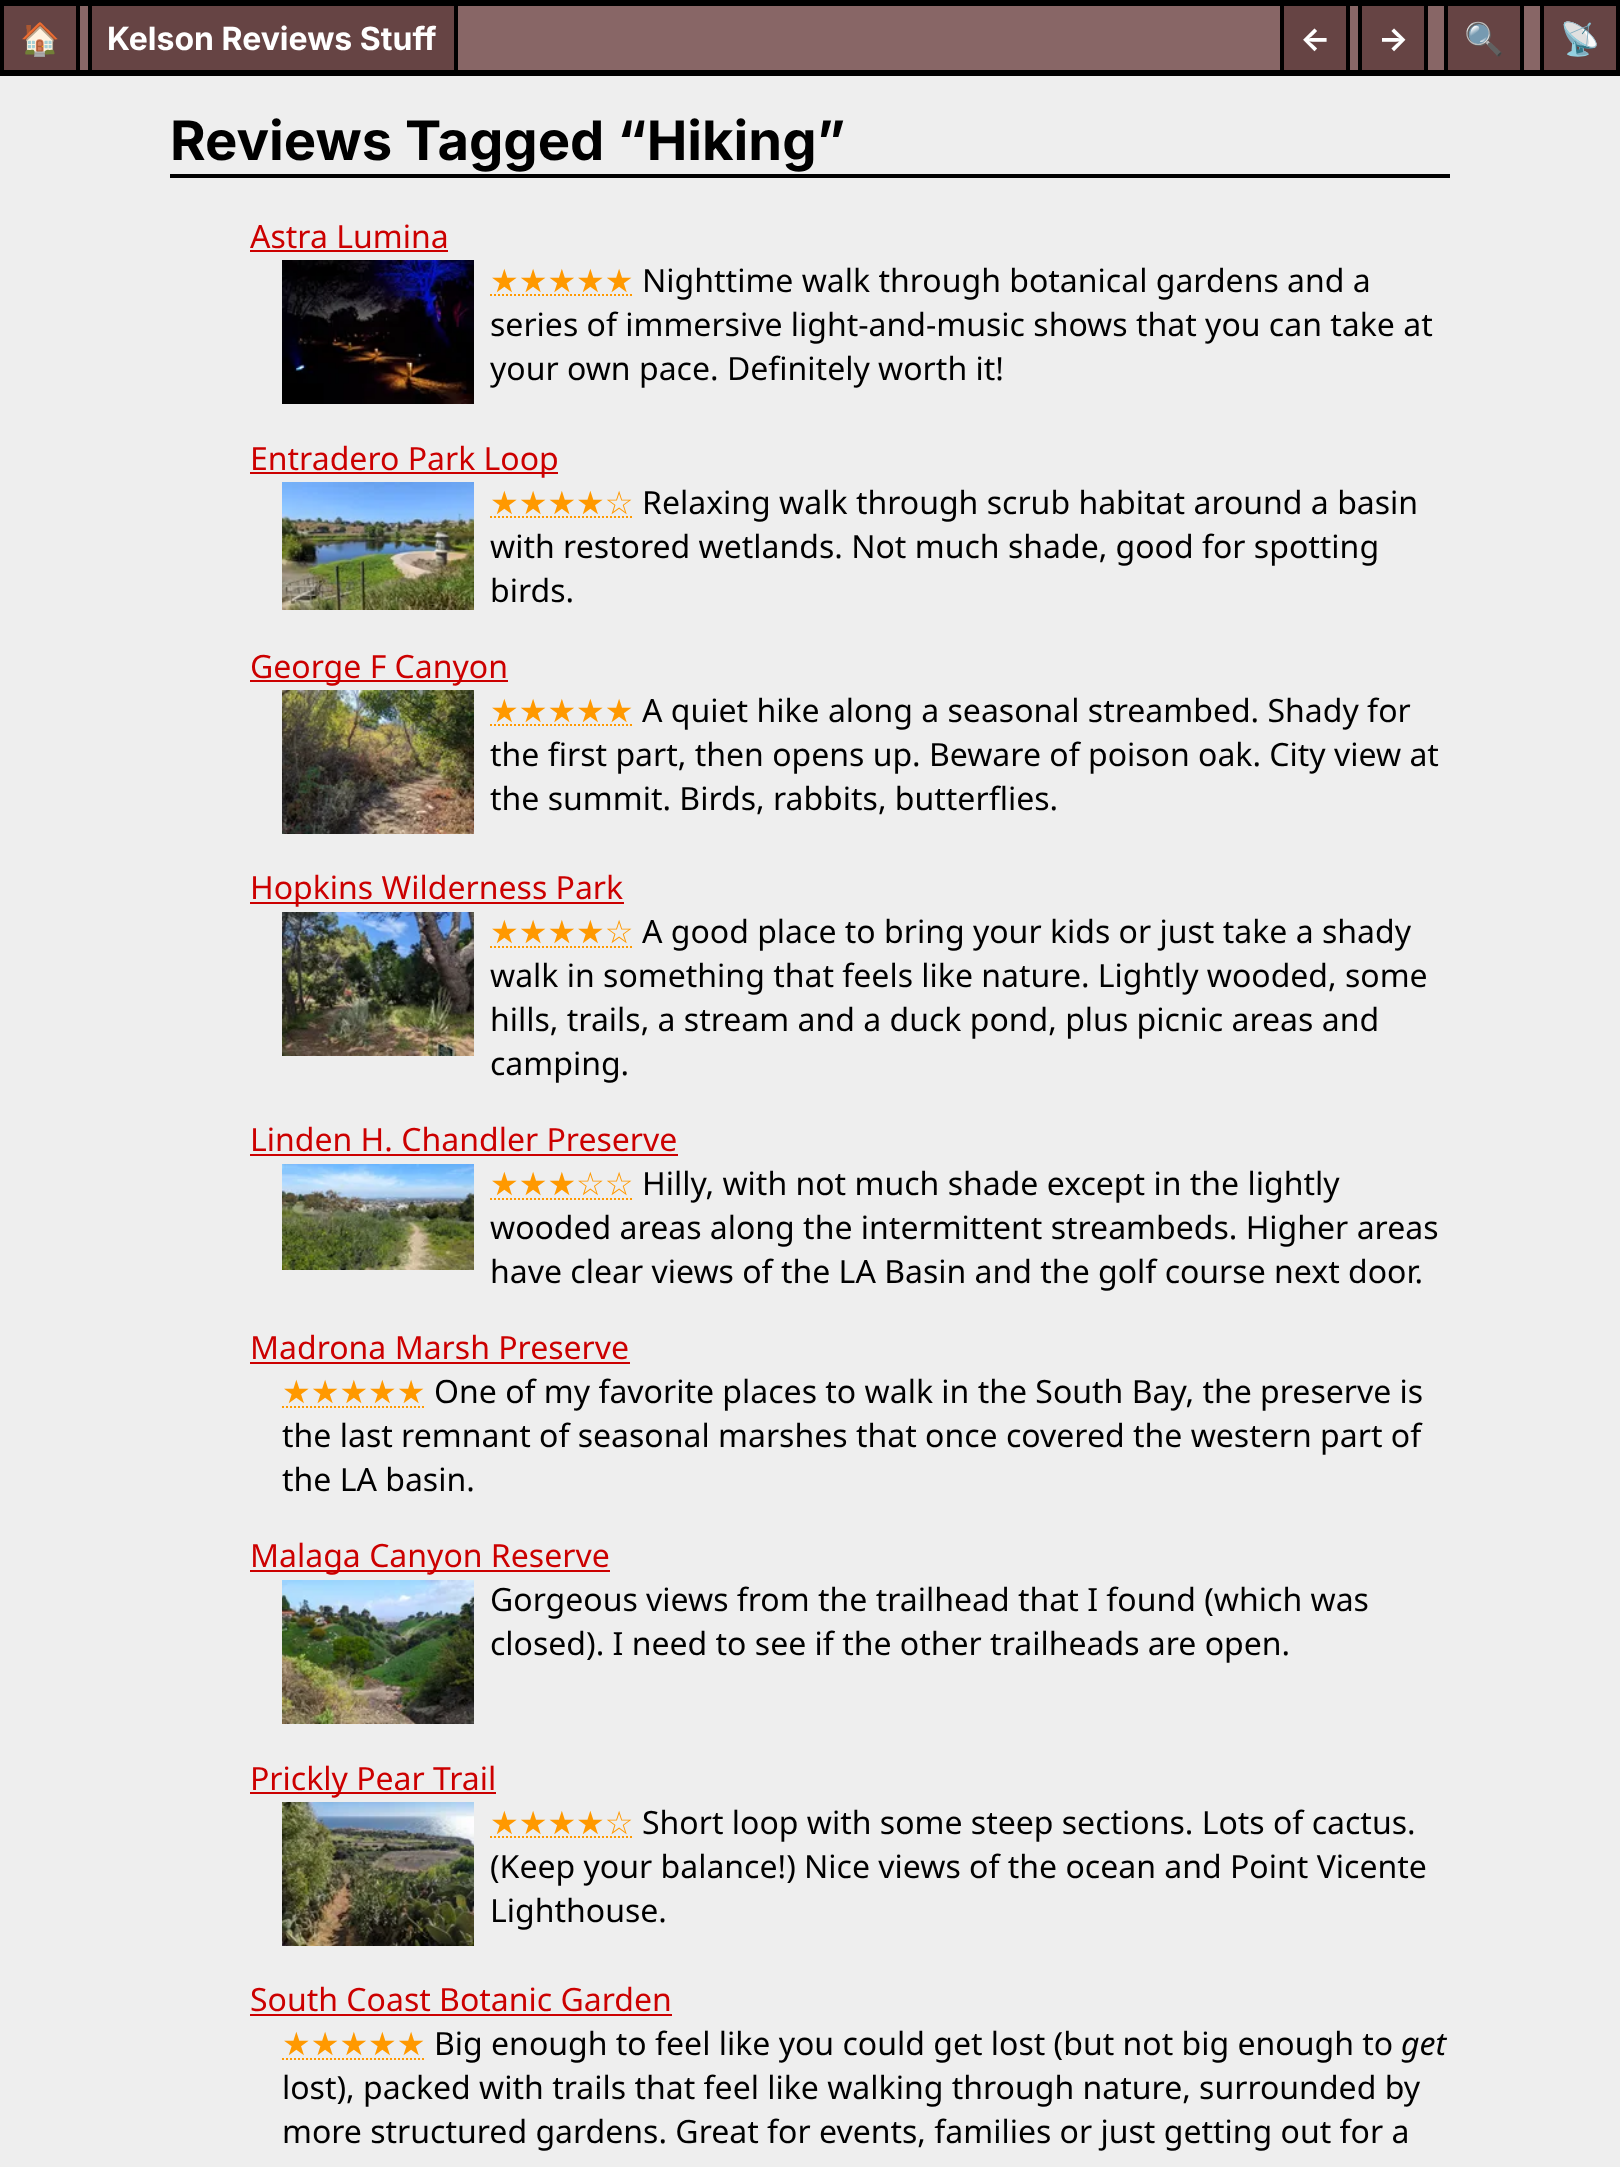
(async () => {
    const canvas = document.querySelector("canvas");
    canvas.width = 1620;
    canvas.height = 2167;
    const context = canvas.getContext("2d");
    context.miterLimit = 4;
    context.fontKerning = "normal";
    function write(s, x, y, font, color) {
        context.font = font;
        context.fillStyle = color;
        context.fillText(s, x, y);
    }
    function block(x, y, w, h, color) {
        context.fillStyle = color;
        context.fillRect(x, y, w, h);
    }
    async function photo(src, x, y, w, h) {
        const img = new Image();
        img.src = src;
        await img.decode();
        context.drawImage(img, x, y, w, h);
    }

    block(0, 0, 1620, 2167, "rgb(238, 238, 238)");
    block(80, 6, 1460, 64, "rgb(136, 102, 102)");
    block(0, 0, 1620, 6, "rgb(0, 0, 0)");
    block(0, 70, 1620, 6, "rgb(0, 0, 0)");
    block(4, 6, 72, 64, "rgb(102, 68, 68)");
    block(76, 6, 4, 64, "rgb(0, 0, 0)");
    block(0, 6, 4, 64, "rgb(0, 0, 0)");
    write("🏠", 20, 50, "bold 32px Noto Color Emoji", "rgb(255, 255, 255)");
    block(92, 6, 362, 64, "rgb(102, 68, 68)");
    block(454, 6, 4, 64, "rgb(0, 0, 0)");
    block(88, 6, 4, 64, "rgb(0, 0, 0)");
    write("Kelson Reviews Stuff", 107, 50, "bold 32px Inter", "rgb(255, 255, 255)");
    block(1284, 6, 62, 64, "rgb(102, 68, 68)");
    block(1346, 6, 4, 64, "rgb(0, 0, 0)");
    block(1280, 6, 4, 64, "rgb(0, 0, 0)");
    write("←", 1300, 50, "bold 32px Inter", "rgb(255, 255, 255)");
    block(1362, 6, 62, 64, "rgb(102, 68, 68)");
    block(1424, 6, 4, 64, "rgb(0, 0, 0)");
    block(1358, 6, 4, 64, "rgb(0, 0, 0)");
    write("→", 1378, 50, "bold 32px Inter", "rgb(255, 255, 255)");
    block(1448, 6, 72, 64, "rgb(102, 68, 68)");
    block(1520, 6, 4, 64, "rgb(0, 0, 0)");
    block(1444, 6, 4, 64, "rgb(0, 0, 0)");
    write("🔍", 1464, 50, "bold 32px Noto Color Emoji", "rgb(255, 255, 255)");
    block(1544, 6, 72, 64, "rgb(102, 68, 68)");
    block(1616, 6, 4, 64, "rgb(0, 0, 0)");
    block(1540, 6, 4, 64, "rgb(0, 0, 0)");
    write("📡", 1560, 50, "bold 32px Noto Color Emoji", "rgb(255, 255, 255)");
    block(170, 174, 1280, 4, "rgb(0, 0, 0)");
    write("Reviews Tagged “Hiking”", 170, 160, "bold 54.4px Inter", "rgb(0, 0, 0)");
    write("Astra Lumina", 250, 248, "32px Noto Sans", "rgb(204, 0, 0)");
    block(250, 250, 198, 2, "rgb(204, 0, 0)");
    await photo("media/1.png", 282, 260, 192, 144);
    write("★★★★★", 490, 292, "32px DejaVu Sans", "rgb(255, 153, 0)");
    context.beginPath();
    context.moveTo(490, 295);
    context.lineTo(633.5, 295);
    context.strokeStyle = "rgb(255, 153, 0)";
    context.lineWidth = 2;
    context.setLineDash([2, 2]);
    context.stroke();
    write("Nighttime walk through botanical gardens and a", 642, 292, "32px Noto Sans", "rgb(0, 0, 0)");
    write("series of immersive light-and-music shows that you can take at", 490, 336, "32px Noto Sans", "rgb(0, 0, 0)");
    write("your own pace. Definitely worth it!", 490, 380, "32px Noto Sans", "rgb(0, 0, 0)");
    block(250, 472, 308, 2, "rgb(204, 0, 0)");
    write("Entradero Park Loop", 250, 470, "32px Noto Sans", "rgb(204, 0, 0)");
    await photo("media/2.png", 282, 482, 192, 128);
    write("★★★★☆", 490, 514, "32px DejaVu Sans", "rgb(255, 153, 0)");
    context.beginPath();
    context.moveTo(490, 517);
    context.lineTo(633.5, 517);
    context.stroke();
    write("Relaxing walk through scrub habitat around a basin", 642, 514, "32px Noto Sans", "rgb(0, 0, 0)");
    write("with restored wetlands. Not much shade, good for spotting", 490, 558, "32px Noto Sans", "rgb(0, 0, 0)");
    write("birds.", 490, 602, "32px Noto Sans", "rgb(0, 0, 0)");
    block(250, 680, 258, 2, "rgb(204, 0, 0)");
    write("George F Canyon", 250, 678, "32px Noto Sans", "rgb(204, 0, 0)");
    await photo("media/3.png", 282, 690, 192, 144);
    write("★★★★★", 490, 722, "32px DejaVu Sans", "rgb(255, 153, 0)");
    context.beginPath();
    context.moveTo(490, 725);
    context.lineTo(633.5, 725);
    context.stroke();
    write("A quiet hike along a seasonal streambed. Shady for", 642, 722, "32px Noto Sans", "rgb(0, 0, 0)");
    write("the first part, then opens up. Beware of poison oak. City view at", 490, 766, "32px Noto Sans", "rgb(0, 0, 0)");
    write("the summit. Birds, rabbits, butterflies.", 490, 810, "32px Noto Sans", "rgb(0, 0, 0)");
    block(250, 902, 374, 2, "rgb(204, 0, 0)");
    write("Hopkins Wilderness Park", 250, 899, "32px Noto Sans", "rgb(204, 0, 0)");
    await photo("media/4.png", 282, 912, 192, 144);
    write("★★★★☆", 490, 943, "32px DejaVu Sans", "rgb(255, 153, 0)");
    context.beginPath();
    context.moveTo(490, 947);
    context.lineTo(633.5, 947);
    context.stroke();
    write("A good place to bring your kids or just take a shady", 642, 943, "32px Noto Sans", "rgb(0, 0, 0)");
    write("walk in something that feels like nature. Lightly wooded, some", 490, 987, "32px Noto Sans", "rgb(0, 0, 0)");
    write("hills, trails, a stream and a duck pond, plus picnic areas and", 490, 1031, "32px Noto Sans", "rgb(0, 0, 0)");
    write("camping.", 490, 1075, "32px Noto Sans", "rgb(0, 0, 0)");
    write("Linden H. Chandler Preserve", 250, 1151, "32px Noto Sans", "rgb(204, 0, 0)");
    block(250, 1154, 428, 2, "rgb(204, 0, 0)");
    await photo("media/5.png", 282, 1164, 192, 106);
    write("★★★☆☆", 490, 1195, "32px DejaVu Sans", "rgb(255, 153, 0)");
    context.beginPath();
    context.moveTo(490, 1199);
    context.lineTo(633.5, 1199);
    context.stroke();
    write("Hilly, with not much shade except in the lightly", 642, 1195, "32px Noto Sans", "rgb(0, 0, 0)");
    write("wooded areas along the intermittent streambeds. Higher areas", 490, 1239, "32px Noto Sans", "rgb(0, 0, 0)");
    write("have clear views of the LA Basin and the golf course next door.", 490, 1283, "32px Noto Sans", "rgb(0, 0, 0)");
    write("Madrona Marsh Preserve", 250, 1359, "32px Noto Sans", "rgb(204, 0, 0)");
    block(250, 1362, 380, 2, "rgb(204, 0, 0)");
    write("★★★★★", 282, 1403, "32px DejaVu Sans", "rgb(255, 153, 0)");
    context.beginPath();
    context.moveTo(282, 1407);
    context.lineTo(425.5, 1407);
    context.stroke();
    write("One of my favorite places to walk in the South Bay, the preserve is", 434, 1403, "32px Noto Sans", "rgb(0, 0, 0)");
    write("the last remnant of seasonal marshes that once covered the western part of", 282, 1447, "32px Noto Sans", "rgb(0, 0, 0)");
    write("the LA basin.", 282, 1491, "32px Noto Sans", "rgb(0, 0, 0)");
    block(250, 1570, 360, 2, "rgb(204, 0, 0)");
    write("Malaga Canyon Reserve", 250, 1567, "32px Noto Sans", "rgb(204, 0, 0)");
    await photo("media/6.png", 282, 1580, 192, 144);
    write("Gorgeous views from the trailhead that I found (which was", 490, 1611, "32px Noto Sans", "rgb(0, 0, 0)");
    write("closed). I need to see if the other trailheads are open.", 490, 1655, "32px Noto Sans", "rgb(0, 0, 0)");
    block(250, 1792, 246, 2, "rgb(204, 0, 0)");
    write("Prickly Pear Trail", 250, 1790, "32px Noto Sans", "rgb(204, 0, 0)");
    await photo("media/7.png", 282, 1802, 192, 144);
    write("★★★★☆", 490, 1834, "32px DejaVu Sans", "rgb(255, 153, 0)");
    context.beginPath();
    context.moveTo(490, 1837);
    context.lineTo(633.5, 1837);
    context.stroke();
    write("Short loop with some steep sections. Lots of cactus.", 642, 1834, "32px Noto Sans", "rgb(0, 0, 0)");
    write("(Keep your balance!) Nice views of the ocean and Point Vicente", 490, 1878, "32px Noto Sans", "rgb(0, 0, 0)");
    write("Lighthouse.", 490, 1922, "32px Noto Sans", "rgb(0, 0, 0)");
    write("South Coast Botanic Garden", 250, 2011, "32px Noto Sans", "rgb(204, 0, 0)");
    block(250, 2014, 422, 2, "rgb(204, 0, 0)");
    write("★★★★★", 282, 2055, "32px DejaVu Sans", "rgb(255, 153, 0)");
    context.beginPath();
    context.moveTo(282, 2059);
    context.lineTo(425.5, 2059);
    context.stroke();
    write("Big enough to feel like you could get lost (but not big enough to", 434, 2055, "32px Noto Sans", "rgb(0, 0, 0)");
    write("get", 1401, 2055, "italic 32px Noto Sans", "rgb(0, 0, 0)");
    write("lost), packed with trails that feel like walking through nature, surrounded by", 282, 2099, "32px Noto Sans", "rgb(0, 0, 0)");
    write("more structured gardens. Great for events, families or just getting out for a", 282, 2143, "32px Noto Sans", "rgb(0, 0, 0)");
})();
